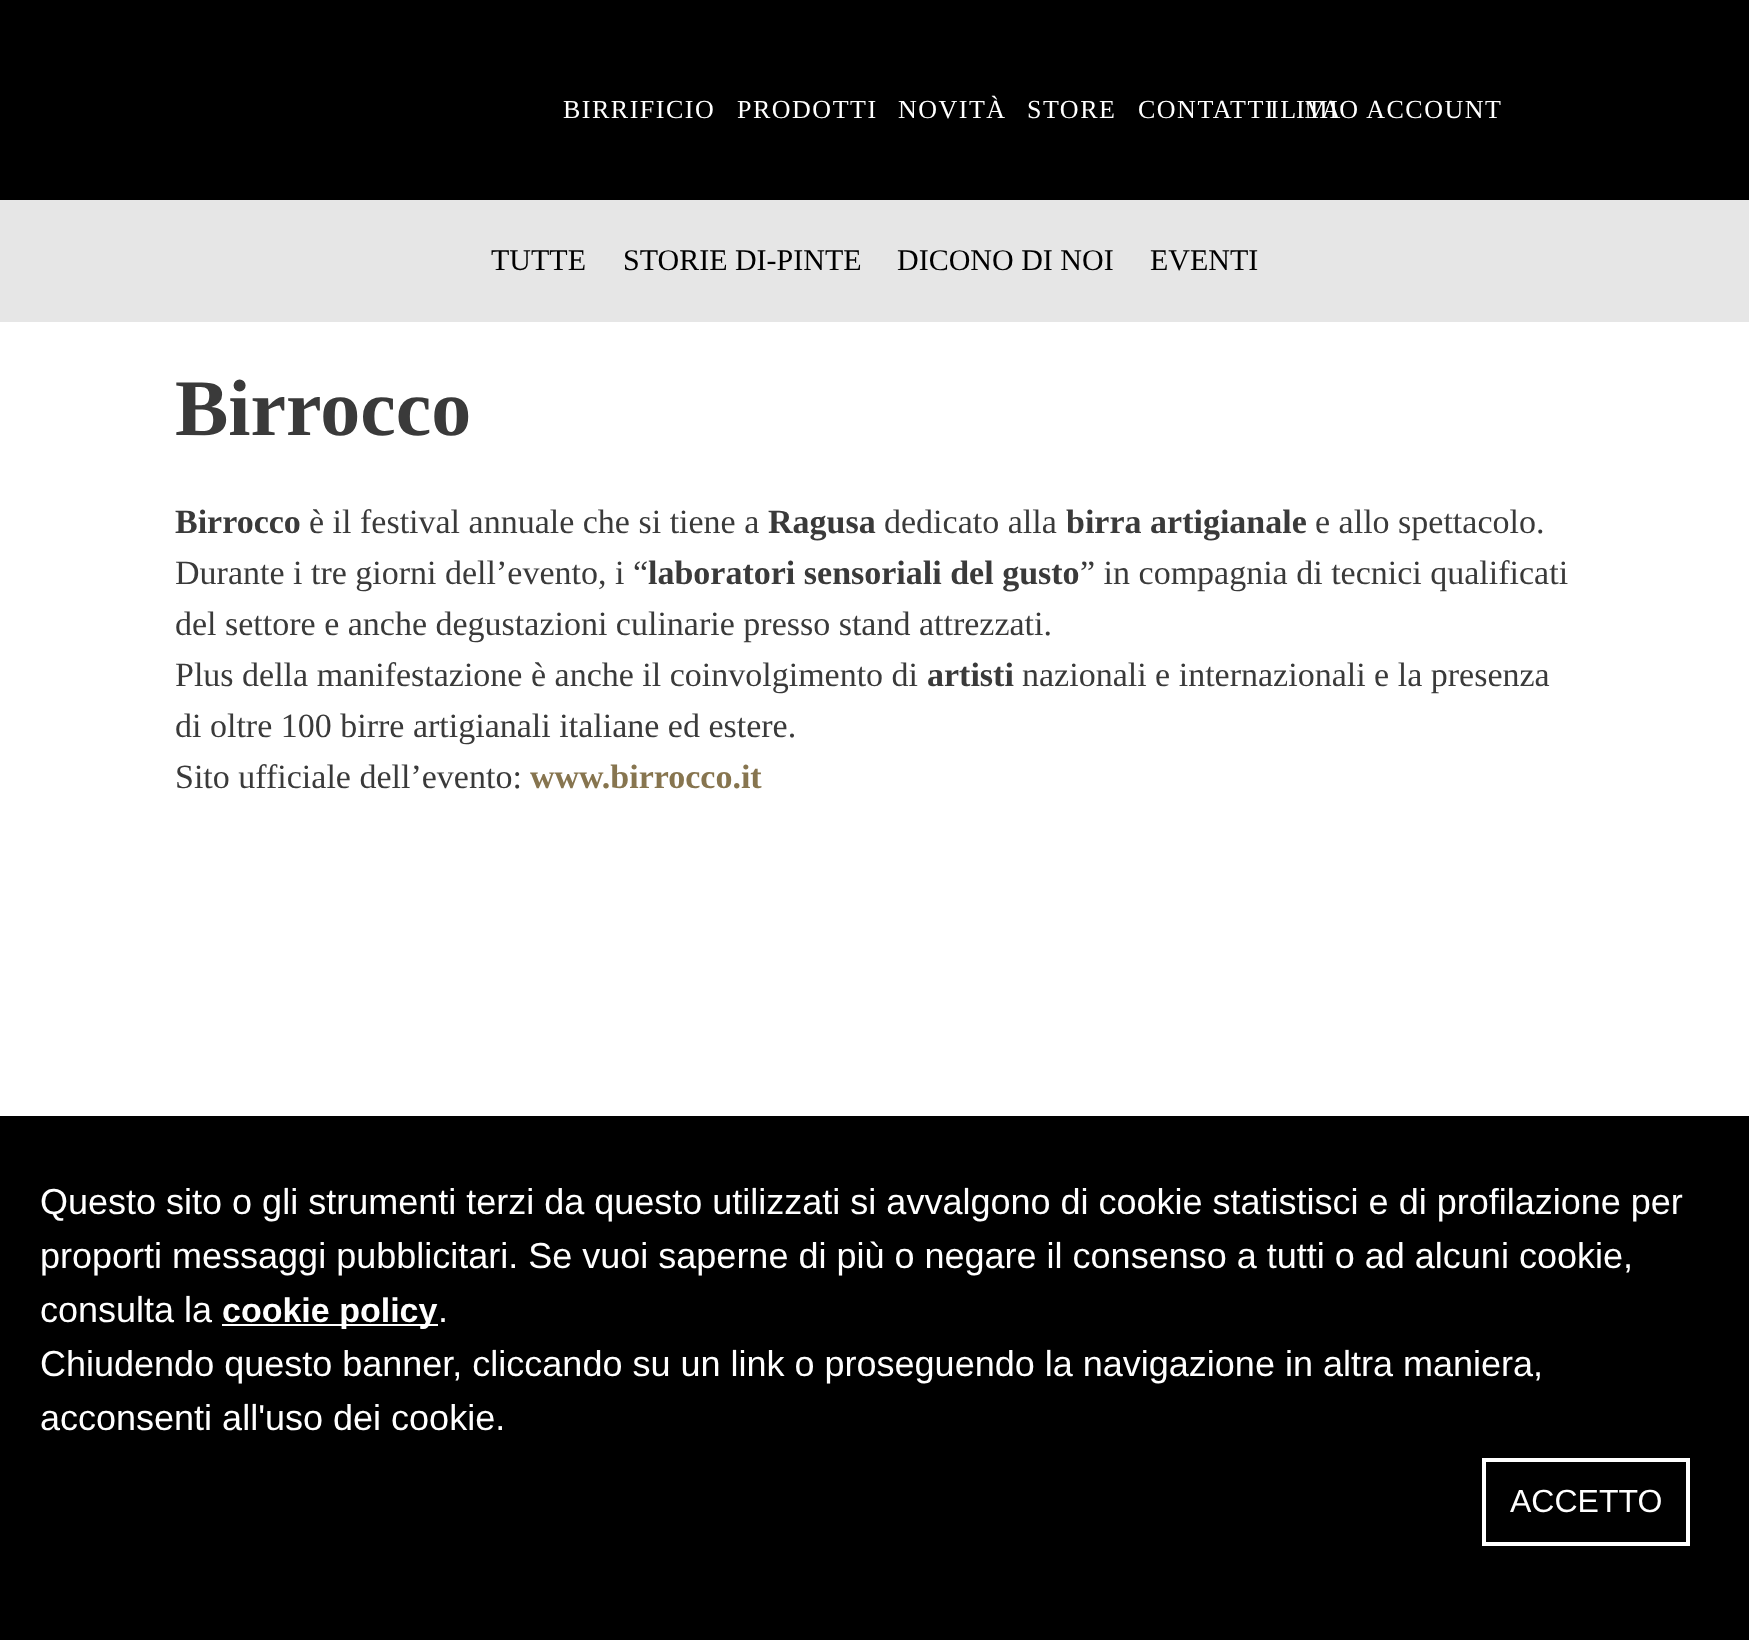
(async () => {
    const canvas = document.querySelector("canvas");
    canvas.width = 1749;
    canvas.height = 1640;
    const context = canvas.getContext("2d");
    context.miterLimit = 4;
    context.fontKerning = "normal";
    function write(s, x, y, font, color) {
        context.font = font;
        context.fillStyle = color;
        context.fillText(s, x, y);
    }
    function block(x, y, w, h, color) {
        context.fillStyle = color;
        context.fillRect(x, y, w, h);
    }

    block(0, 0, 1749, 1640, "rgb(255, 255, 255)");
    block(0, 0, 1749, 200, "rgb(0, 0, 0)");
    context.letterSpacing = "1.5px";
    write("BIRRIFICIO", 563, 118, "26px Liberation Serif", "rgb(255, 255, 255)");
    write("PRODOTTI", 737, 118, "26px Liberation Serif", "rgb(255, 255, 255)");
    write("NOVITÀ", 898, 118, "26px Liberation Serif", "rgb(255, 255, 255)");
    write("STORE", 1027, 118, "26px Liberation Serif", "rgb(255, 255, 255)");
    write("CONTATTI", 1138, 118, "26px Liberation Serif", "rgb(255, 255, 255)");
    write("IL MIO ACCOUNT", 1270, 118, "26px Liberation Serif", "rgb(255, 255, 255)");
    write("ITA", 1296, 118, "26px Liberation Serif", "rgb(255, 255, 255)");
    block(0, 200, 1749, 122, "rgb(230, 230, 230)");
    context.letterSpacing = "0px";
    write("TUTTE", 491, 270, "30px Liberation Serif", "rgb(0, 0, 0)");
    write("STORIE DI-PINTE", 623, 270, "30px Liberation Serif", "rgb(0, 0, 0)");
    write("DICONO DI NOI", 897, 270, "30px Liberation Serif", "rgb(0, 0, 0)");
    write("EVENTI", 1150, 270, "30px Liberation Serif", "rgb(0, 0, 0)");
    write("Birrocco", 175, 435, "bold 80px Liberation Serif", "rgb(58, 58, 58)");
    write("Birrocco", 175, 533, "bold 34px Liberation Serif", "rgb(58, 58, 58)");
    write("è il festival annuale che si tiene a", 309, 533, "34px Liberation Serif", "rgb(58, 58, 58)");
    write("Ragusa", 768, 533, "bold 34px Liberation Serif", "rgb(58, 58, 58)");
    write("dedicato alla", 884, 533, "34px Liberation Serif", "rgb(58, 58, 58)");
    write("birra artigianale", 1066, 533, "bold 34px Liberation Serif", "rgb(58, 58, 58)");
    write("e allo spettacolo.", 1315, 533, "34px Liberation Serif", "rgb(58, 58, 58)");
    write("Durante i tre giorni dell’evento, i “", 175, 584, "34px Liberation Serif", "rgb(58, 58, 58)");
    write("laboratori sensoriali del gusto", 648, 584, "bold 34px Liberation Serif", "rgb(58, 58, 58)");
    write("” in compagnia di tecnici qualificati", 1080, 584, "34px Liberation Serif", "rgb(58, 58, 58)");
    write("del settore e anche degustazioni culinarie presso stand attrezzati.", 175, 635, "34px Liberation Serif", "rgb(58, 58, 58)");
    write("Plus della manifestazione è anche il coinvolgimento di", 175, 686, "34px Liberation Serif", "rgb(58, 58, 58)");
    write("artisti", 927, 686, "bold 34px Liberation Serif", "rgb(58, 58, 58)");
    write("nazionali e internazionali e la presenza", 1022, 686, "34px Liberation Serif", "rgb(58, 58, 58)");
    write("di oltre 100 birre artigianali italiane ed estere.", 175, 737, "34px Liberation Serif", "rgb(58, 58, 58)");
    write("Sito ufficiale dell’evento:", 175, 788, "34px Liberation Serif", "rgb(58, 58, 58)");
    write("www.birrocco.it", 530, 788, "bold 34px Liberation Serif", "rgb(135, 117, 79)");
    block(0, 1116, 1749, 524, "rgb(0, 0, 0)");
    write("Questo sito o gli strumenti terzi da questo utilizzati si avvalgono di cookie statistisci e di profilazione per", 40, 1214, "36px Liberation Sans", "rgb(255, 255, 255)");
    write("proporti messaggi pubblicitari. Se vuoi saperne di più o negare il consenso a tutti o ad alcuni cookie,", 40, 1268, "36px Liberation Sans", "rgb(255, 255, 255)");
    write("consulta la", 40, 1322, "36px Liberation Sans", "rgb(255, 255, 255)");
    block(222, 1324, 216, 2, "rgb(255, 255, 255)");
    write("cookie policy", 222, 1322, "bold 34px Liberation Sans", "rgb(255, 255, 255)");
    write(".", 438, 1322, "36px Liberation Sans", "rgb(255, 255, 255)");
    write("Chiudendo questo banner, cliccando su un link o proseguendo la navigazione in altra maniera,", 40, 1376, "36px Liberation Sans", "rgb(255, 255, 255)");
    write("acconsenti all'uso dei cookie.", 40, 1430, "36px Liberation Sans", "rgb(255, 255, 255)");
    context.strokeStyle = "rgb(255, 255, 255)";
    context.lineWidth = 4;
    context.strokeRect(1484, 1460, 204, 84);
    write("ACCETTO", 1510, 1512, "32px Liberation Sans", "rgb(255, 255, 255)");
})();
